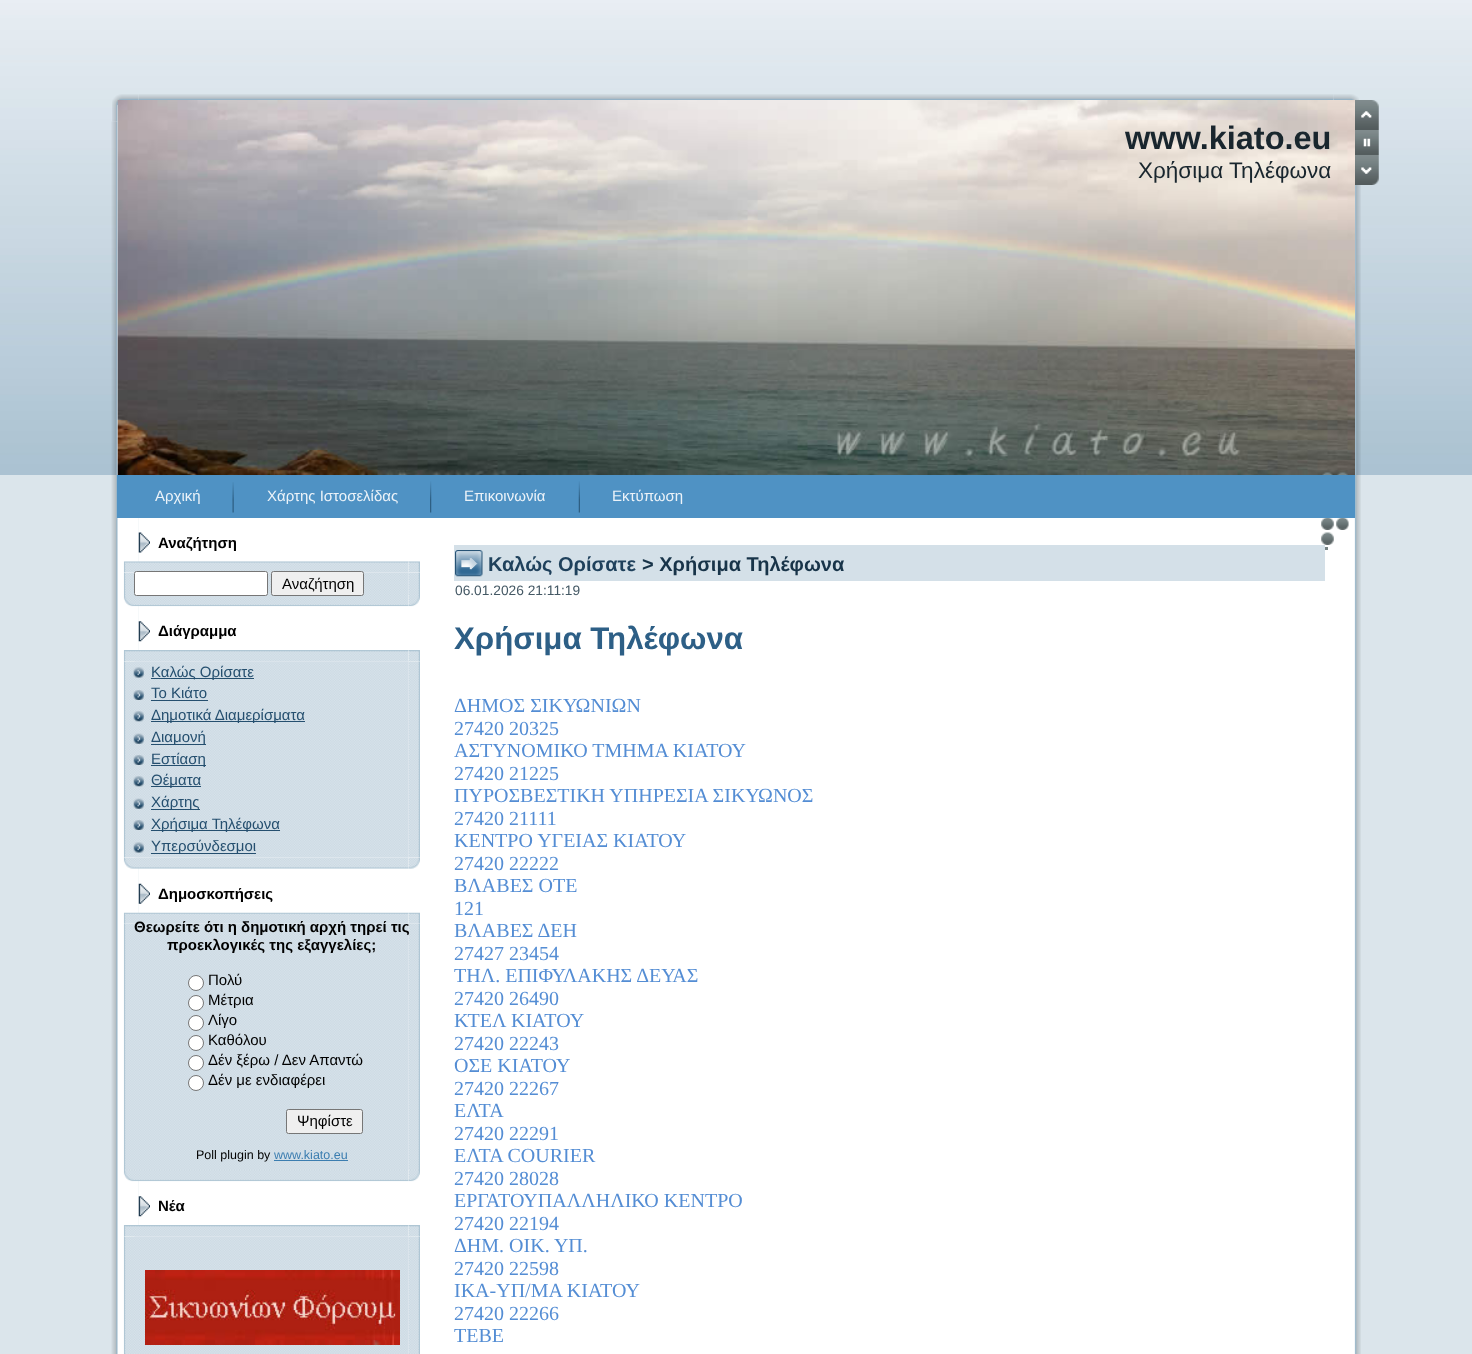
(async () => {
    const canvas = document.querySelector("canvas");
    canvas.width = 1472;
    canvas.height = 1354;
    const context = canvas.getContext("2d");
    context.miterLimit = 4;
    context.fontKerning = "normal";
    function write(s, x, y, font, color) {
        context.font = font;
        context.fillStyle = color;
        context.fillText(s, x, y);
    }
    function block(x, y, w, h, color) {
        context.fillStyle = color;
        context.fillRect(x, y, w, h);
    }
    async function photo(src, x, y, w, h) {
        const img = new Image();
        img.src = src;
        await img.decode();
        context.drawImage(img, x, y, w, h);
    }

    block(0, 0, 1472, 1354, "rgb(219, 229, 235)");
    await photo("media/1.png", 0, 0, 1472, 475);
    await photo("media/2.png", 112, 94, 27, 28);
    await photo("media/4.png", 1333, 94, 26, 8);
    await photo("media/3.png", 139, 94, 1195, 6);
    await photo("media/5.png", 111, 121, 28, 1233);
    await photo("media/62.png", 1334, 155, 27, 1199);
    await photo("media/6.png", 117, 100, 1238, 375);
    await photo("media/7.png", 1355, 100, 24, 30);
    await photo("media/8.png", 1355, 155, 24, 30);
    await photo("media/9.png", 1355, 130, 24, 25);
    await photo("media/10.png", 1322, 472, 11, 3);
    await photo("media/11.png", 1337, 472, 11, 3);
    block(139, 518, 1195, 836, "rgb(255, 255, 255)");
    await photo("media/12.png", 1321, 518, 13, 12);
    await photo("media/13.png", 1336, 518, 13, 12);
    await photo("media/14.png", 1321, 532, 13, 13);
    block(1321, 547, 7, 3, "rgb(118, 130, 131)");
    write("www.kiato.eu", 1125, 149, "bold 32.5px Liberation Sans", "rgb(25, 38, 46)");
    write("Χρήσιμα Τηλέφωνα", 1138, 178, "22.5px Liberation Sans", "rgb(25, 38, 46)");
    block(117, 475, 1238, 43, "rgb(79, 146, 196)");
    write("Αρχική", 155, 501, "15px Liberation Sans", "rgb(236, 243, 249)");
    await photo("media/15.png", 232, 482, 2, 31);
    write("Χάρτης Ιστοσελίδας", 267, 501, "15px Liberation Sans", "rgb(236, 243, 249)");
    await photo("media/16.png", 430, 481, 2, 32);
    write("Επικοινωνία", 464, 501, "15px Liberation Sans", "rgb(236, 243, 249)");
    await photo("media/17.png", 578, 481, 2, 32);
    write("Εκτύπωση", 612, 501, "15px Liberation Sans", "rgb(236, 243, 249)");
    await photo("media/18.png", 138, 532, 12, 21);
    write("Αναζήτηση", 158, 548, "bold 15px Liberation Sans", "rgb(0, 0, 0)");
    await photo("media/19.png", 123, 561, 12, 12);
    await photo("media/21.png", 408, 561, 12, 12);
    await photo("media/20.png", 135, 561, 274, 12);
    await photo("media/22.png", 123, 572, 12, 23);
    await photo("media/24.png", 408, 572, 12, 23);
    await photo("media/23.png", 267, 572, 142, 23);
    await photo("media/25.png", 123, 595, 12, 12);
    await photo("media/27.png", 408, 595, 12, 12);
    await photo("media/26.png", 135, 595, 274, 12);
    context.fillStyle = "rgb(255, 255, 255)";
    context.beginPath();
    context.roundRect(134.5, 571.5, 133, 24, 2);
    context.fill();
    context.strokeStyle = "rgb(118, 118, 118)";
    context.stroke();
    context.fillStyle = "rgb(239, 239, 239)";
    context.beginPath();
    context.roundRect(271.5, 571.5, 92, 24, 2);
    context.fill();
    context.stroke();
    write("Αναζήτηση", 282, 589, "15px Liberation Sans", "rgb(0, 0, 0)");
    await photo("media/28.png", 138, 621, 12, 21);
    write("Διάγραμμα", 158, 636, "bold 15px Liberation Sans", "rgb(0, 0, 0)");
    await photo("media/29.png", 123, 650, 12, 12);
    await photo("media/31.png", 408, 650, 12, 12);
    await photo("media/30.png", 135, 650, 274, 12);
    await photo("media/44.png", 123, 857, 12, 12);
    await photo("media/32.png", 123, 661, 12, 197);
    await photo("media/46.png", 408, 857, 12, 12);
    await photo("media/45.png", 135, 857, 274, 12);
    await photo("media/34.png", 408, 661, 12, 197);
    await photo("media/33.png", 135, 661, 274, 197);
    await photo("media/35.png", 133, 667, 11, 11);
    block(151, 678, 103, 1, "rgb(37, 79, 111)");
    write("Καλώς Ορίσατε", 151, 677, "15px Liberation Sans", "rgb(37, 79, 111)");
    await photo("media/36.png", 133, 690, 11, 10);
    write("Το Κιάτο", 151, 698, "15px Liberation Sans", "rgb(37, 79, 111)");
    block(151, 700, 57, 1, "rgb(37, 79, 111)");
    await photo("media/37.png", 133, 711, 11, 11);
    block(151, 721, 154, 1, "rgb(37, 79, 111)");
    write("Δημοτικά Διαμερίσματα", 151, 720, "15px Liberation Sans", "rgb(37, 79, 111)");
    await photo("media/38.png", 133, 733, 11, 11);
    block(151, 744, 55, 1, "rgb(37, 79, 111)");
    write("Διαμονή", 151, 742, "15px Liberation Sans", "rgb(37, 79, 111)");
    await photo("media/39.png", 133, 755, 11, 10);
    block(151, 765, 55, 1, "rgb(37, 79, 111)");
    write("Εστίαση", 151, 764, "15px Liberation Sans", "rgb(37, 79, 111)");
    await photo("media/40.png", 133, 776, 11, 11);
    block(151, 786, 50, 1, "rgb(37, 79, 111)");
    write("Θέματα", 151, 785, "15px Liberation Sans", "rgb(37, 79, 111)");
    await photo("media/41.png", 133, 798, 11, 11);
    block(151, 809, 49, 1, "rgb(37, 79, 111)");
    write("Χάρτης", 151, 807, "15px Liberation Sans", "rgb(37, 79, 111)");
    await photo("media/42.png", 133, 820, 11, 10);
    block(151, 830, 129, 1, "rgb(37, 79, 111)");
    write("Χρήσιμα Τηλέφωνα", 151, 829, "15px Liberation Sans", "rgb(37, 79, 111)");
    await photo("media/43.png", 133, 842, 11, 11);
    block(151, 853, 105, 1, "rgb(37, 79, 111)");
    write("Υπερσύνδεσμοι", 151, 851, "15px Liberation Sans", "rgb(37, 79, 111)");
    await photo("media/47.png", 138, 883, 12, 21);
    write("Δημοσκοπήσεις", 158, 899, "bold 15px Liberation Sans", "rgb(0, 0, 0)");
    await photo("media/48.png", 123, 912, 12, 12);
    await photo("media/50.png", 408, 912, 12, 12);
    await photo("media/49.png", 135, 912, 274, 12);
    await photo("media/51.png", 123, 924, 12, 246);
    await photo("media/53.png", 408, 924, 12, 246);
    await photo("media/52.png", 135, 923, 274, 247);
    write("Θεωρείτε ότι η δημοτική αρχή τηρεί τις", 134, 932, "bold 15px Liberation Sans", "rgb(0, 0, 0)");
    write("προεκλογικές της εξαγγελίες;", 167, 950, "bold 15px Liberation Sans", "rgb(0, 0, 0)");
    context.fillStyle = "rgb(255, 255, 255)";
    context.beginPath();
    context.arc(196, 983, 7.5, 0, Math.PI * 2);
    context.fill();
    context.stroke();
    write("Πολύ", 208, 985, "15px Liberation Sans", "rgb(0, 0, 0)");
    context.fillStyle = "rgb(255, 255, 255)";
    context.beginPath();
    context.arc(196, 1003, 7.5, 0, Math.PI * 2);
    context.fill();
    context.stroke();
    write("Μέτρια", 208, 1005, "15px Liberation Sans", "rgb(0, 0, 0)");
    context.fillStyle = "rgb(255, 255, 255)";
    context.beginPath();
    context.arc(196, 1023, 7.5, 0, Math.PI * 2);
    context.fill();
    context.stroke();
    write("Λίγο", 208, 1025, "15px Liberation Sans", "rgb(0, 0, 0)");
    context.fillStyle = "rgb(255, 255, 255)";
    context.beginPath();
    context.arc(196, 1043, 7.5, 0, Math.PI * 2);
    context.fill();
    context.stroke();
    write("Καθόλου", 208, 1045, "15px Liberation Sans", "rgb(0, 0, 0)");
    context.fillStyle = "rgb(255, 255, 255)";
    context.beginPath();
    context.arc(196, 1063, 7.5, 0, Math.PI * 2);
    context.fill();
    context.stroke();
    write("Δέν ξέρω / Δεν Απαντώ", 208, 1065, "15px Liberation Sans", "rgb(0, 0, 0)");
    context.fillStyle = "rgb(255, 255, 255)";
    context.beginPath();
    context.arc(196, 1083, 7.5, 0, Math.PI * 2);
    context.fill();
    context.stroke();
    write("Δέν με ενδιαφέρει", 208, 1085, "15px Liberation Sans", "rgb(0, 0, 0)");
    context.fillStyle = "rgb(239, 239, 239)";
    context.beginPath();
    context.roundRect(286.5, 1109.5, 76, 24, 2);
    context.fill();
    context.stroke();
    write("Ψηφίστε", 297, 1126, "15px Liberation Sans", "rgb(0, 0, 0)");
    write("Poll plugin by", 196, 1159, "12.5px Liberation Sans", "rgb(0, 0, 0)");
    write("www.kiato.eu", 274, 1159, "12.5px Liberation Sans", "rgb(59, 125, 176)");
    block(274, 1160, 74, 1, "rgb(59, 125, 176)");
    await photo("media/54.png", 123, 1170, 12, 12);
    await photo("media/56.png", 408, 1170, 12, 12);
    await photo("media/55.png", 135, 1170, 274, 12);
    await photo("media/28.png", 138, 1196, 12, 21);
    write("Νέα", 158, 1211, "bold 15px Liberation Sans", "rgb(0, 0, 0)");
    await photo("media/29.png", 123, 1225, 12, 12);
    await photo("media/31.png", 408, 1225, 12, 12);
    await photo("media/30.png", 135, 1225, 274, 12);
    await photo("media/57.png", 123, 1236, 12, 118);
    await photo("media/59.png", 408, 1236, 12, 118);
    await photo("media/58.png", 135, 1236, 274, 118);
    await photo("media/60.png", 145, 1270, 255, 75);
    block(454, 545, 871, 36, "rgb(212, 224, 232)");
    await photo("media/61.png", 455, 550, 28, 27);
    write("Καλώς Ορίσατε", 488, 571, "bold 20px Liberation Sans", "rgb(31, 65, 92)");
    write("> Χρήσιμα Τηλέφωνα", 642, 571, "bold 20px Liberation Sans", "rgb(24, 52, 73)");
    write("06.01.2026 21:11:19", 455, 595, "13.75px Liberation Sans", "rgb(68, 88, 100)");
    write("Χρήσιμα Τηλέφωνα", 454, 649, "bold 31.25px Liberation Sans", "rgb(45, 95, 134)");
    write("ΔΗΜΟΣ ΣΙΚΥΩΝΙΩΝ", 454, 712, "20px Liberation Serif", "rgb(84, 141, 212)");
    write("27420 20325", 454, 735, "20px Liberation Serif", "rgb(84, 141, 212)");
    write("ΑΣΤΥΝΟΜΙΚΟ ΤΜΗΜΑ ΚΙΑΤΟΥ", 454, 757, "20px Liberation Serif", "rgb(84, 141, 212)");
    write("27420 21225", 454, 780, "20px Liberation Serif", "rgb(84, 141, 212)");
    write("ΠΥΡΟΣΒΕΣΤΙΚΗ ΥΠΗΡΕΣΙΑ ΣΙΚΥΩΝΟΣ", 454, 802, "20px Liberation Serif", "rgb(84, 141, 212)");
    write("27420 21111", 454, 825, "20px Liberation Serif", "rgb(84, 141, 212)");
    write("ΚΕΝΤΡΟ ΥΓΕΙΑΣ ΚΙΑΤΟΥ", 454, 847, "20px Liberation Serif", "rgb(84, 141, 212)");
    write("27420 22222", 454, 870, "20px Liberation Serif", "rgb(84, 141, 212)");
    write("ΒΛΑΒΕΣ ΟΤΕ", 454, 892, "20px Liberation Serif", "rgb(84, 141, 212)");
    write("121", 454, 915, "20px Liberation Serif", "rgb(84, 141, 212)");
    write("ΒΛΑΒΕΣ ΔΕΗ", 454, 937, "20px Liberation Serif", "rgb(84, 141, 212)");
    write("27427 23454", 454, 960, "20px Liberation Serif", "rgb(84, 141, 212)");
    write("ΤΗΛ. ΕΠΙΦΥΛΑΚΗΣ ΔΕΥΑΣ", 454, 982, "20px Liberation Serif", "rgb(84, 141, 212)");
    write("27420 26490", 454, 1005, "20px Liberation Serif", "rgb(84, 141, 212)");
    write("ΚΤΕΛ ΚΙΑΤΟΥ", 454, 1027, "20px Liberation Serif", "rgb(84, 141, 212)");
    write("27420 22243", 454, 1050, "20px Liberation Serif", "rgb(84, 141, 212)");
    write("ΟΣΕ ΚΙΑΤΟΥ", 454, 1072, "20px Liberation Serif", "rgb(84, 141, 212)");
    write("27420 22267", 454, 1095, "20px Liberation Serif", "rgb(84, 141, 212)");
    write("ΕΛΤΑ", 454, 1117, "20px Liberation Serif", "rgb(84, 141, 212)");
    write("27420 22291", 454, 1140, "20px Liberation Serif", "rgb(84, 141, 212)");
    write("ΕΛΤΑ COURIER", 454, 1162, "20px Liberation Serif", "rgb(84, 141, 212)");
    write("27420 28028", 454, 1185, "20px Liberation Serif", "rgb(84, 141, 212)");
    write("ΕΡΓΑΤΟΥΠΑΛΛΗΛΙΚΟ ΚΕΝΤΡΟ", 454, 1207, "20px Liberation Serif", "rgb(84, 141, 212)");
    write("27420 22194", 454, 1230, "20px Liberation Serif", "rgb(84, 141, 212)");
    write("ΔΗΜ. ΟΙΚ. ΥΠ.", 454, 1252, "20px Liberation Serif", "rgb(84, 141, 212)");
    write("27420 22598", 454, 1275, "20px Liberation Serif", "rgb(84, 141, 212)");
    write("ΙΚΑ-ΥΠ/ΜΑ ΚΙΑΤΟΥ", 454, 1297, "20px Liberation Serif", "rgb(84, 141, 212)");
    write("27420 22266", 454, 1320, "20px Liberation Serif", "rgb(84, 141, 212)");
    write("ΤΕΒΕ", 454, 1342, "20px Liberation Serif", "rgb(84, 141, 212)");
})();
